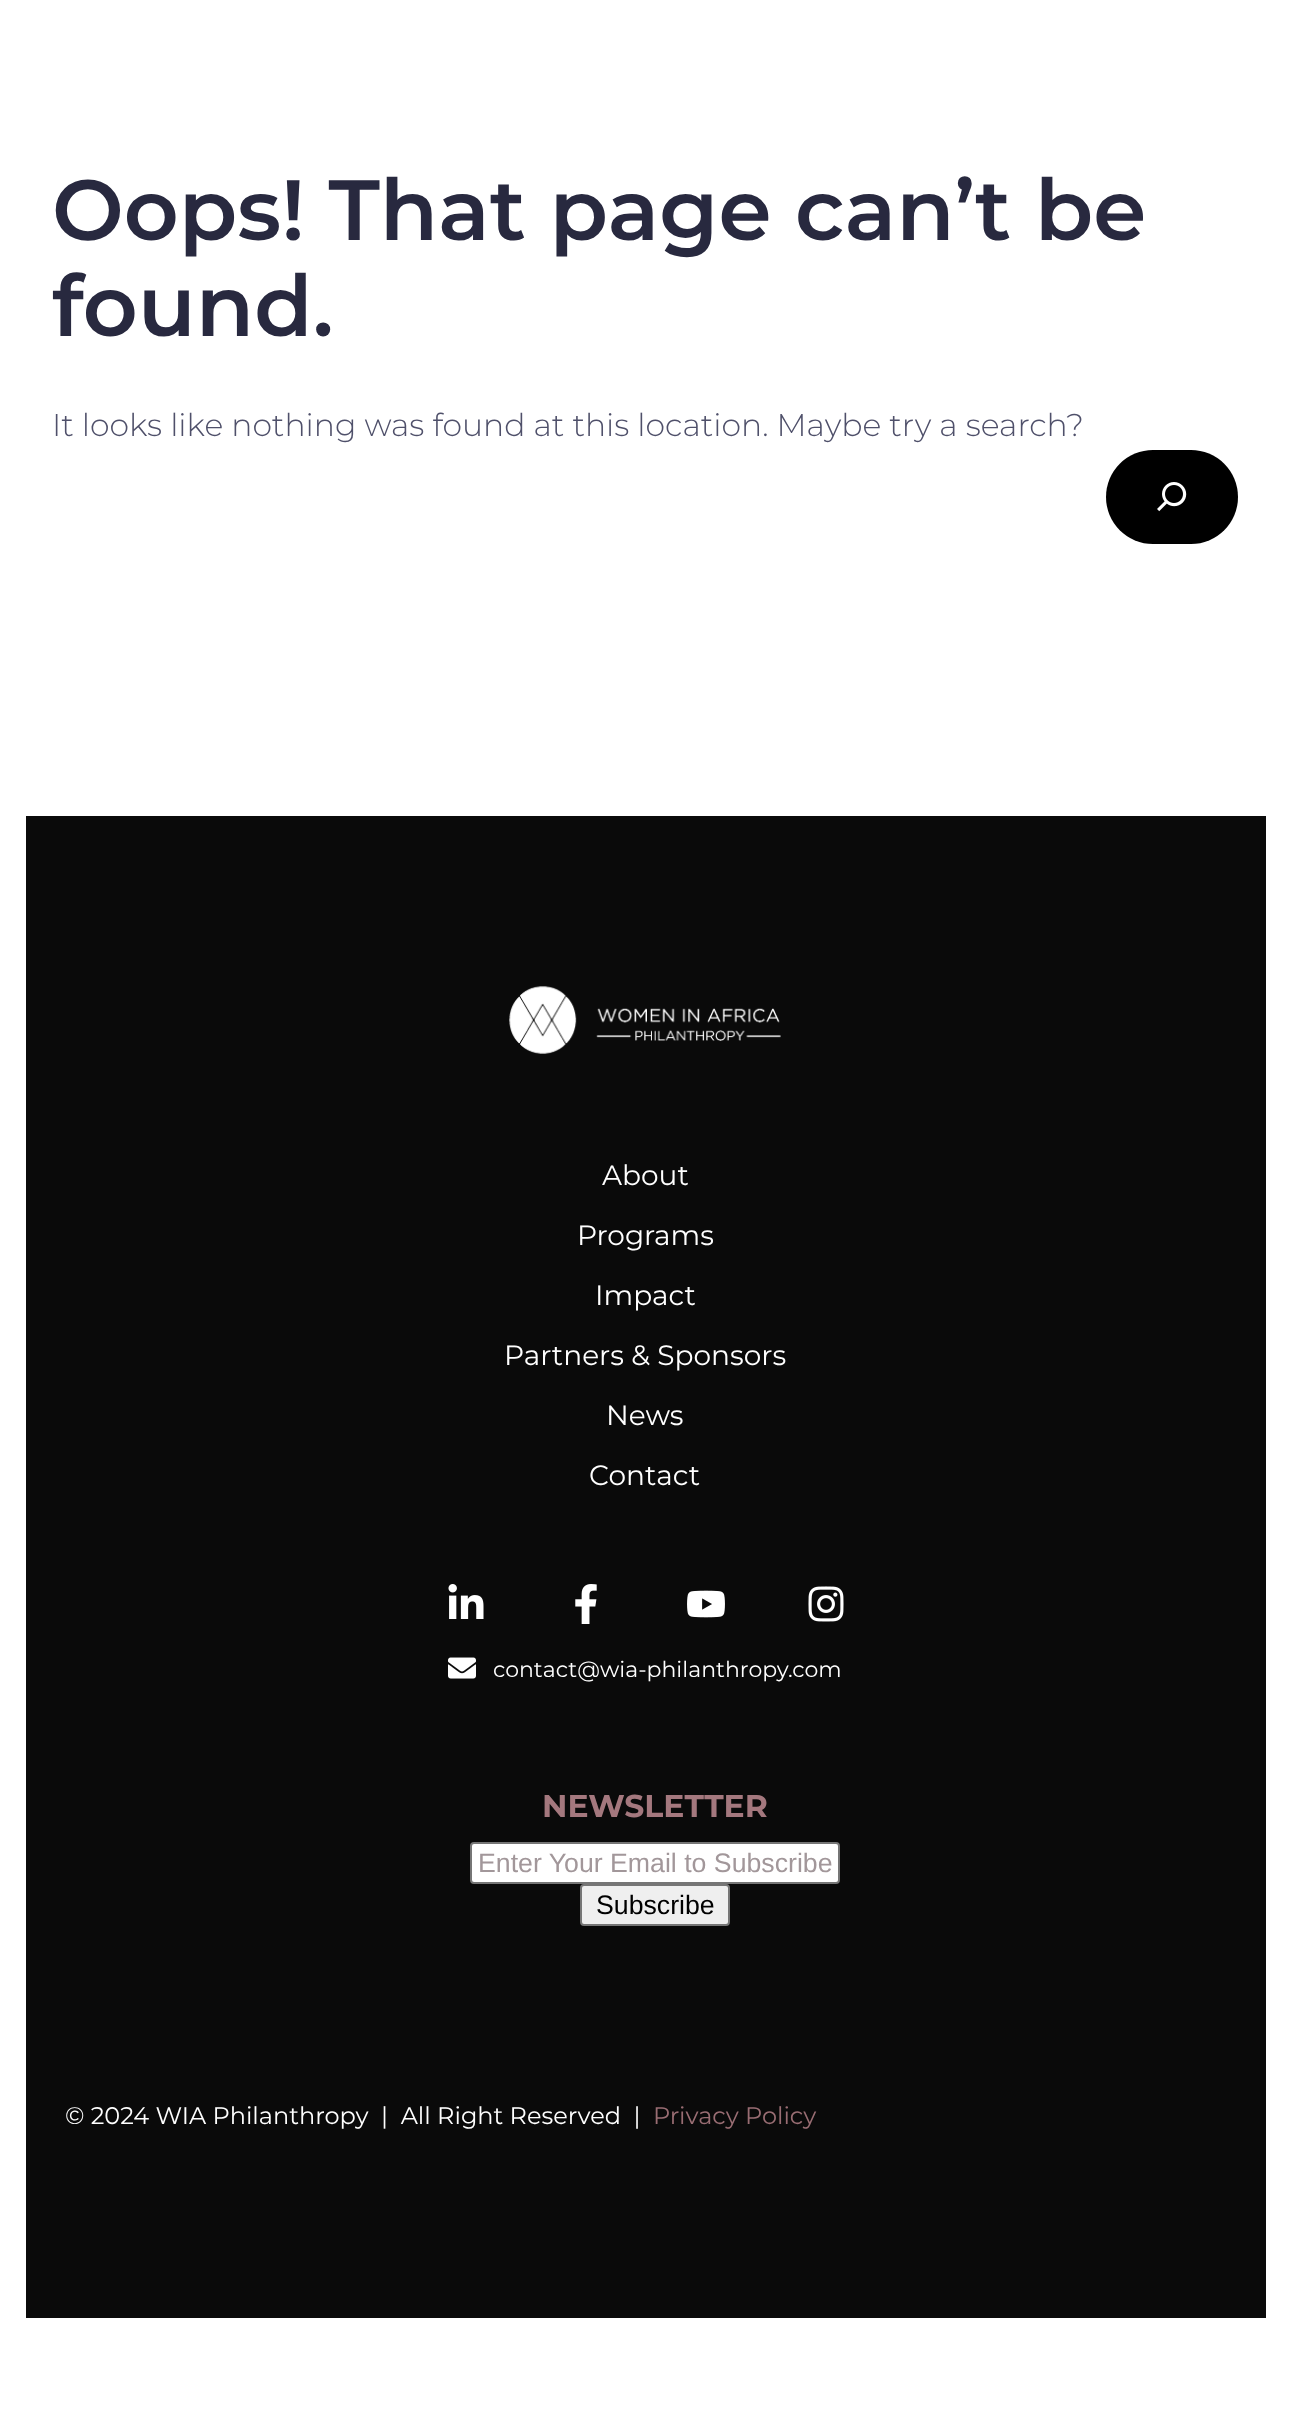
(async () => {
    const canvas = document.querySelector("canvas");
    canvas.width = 1289;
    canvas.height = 2410;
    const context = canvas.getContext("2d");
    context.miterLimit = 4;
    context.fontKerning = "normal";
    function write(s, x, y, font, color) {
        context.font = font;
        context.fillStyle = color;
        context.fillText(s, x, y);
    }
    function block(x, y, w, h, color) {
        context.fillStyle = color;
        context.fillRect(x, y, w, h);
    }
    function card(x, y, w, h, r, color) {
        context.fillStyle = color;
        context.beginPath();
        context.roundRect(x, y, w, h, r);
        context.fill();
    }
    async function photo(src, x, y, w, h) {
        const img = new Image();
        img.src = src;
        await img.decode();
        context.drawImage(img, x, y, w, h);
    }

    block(0, 0, 1289, 2410, "rgb(255, 255, 255)");
    write("Oops! That page can’t be", 52, 240, "600 85.25px Montserrat", "rgb(40, 41, 63)");
    write("found.", 52, 336, "600 85.25px Montserrat", "rgb(40, 41, 63)");
    write("It looks like nothing was found at this location. Maybe try a search?", 52, 436, "300 31.45px Montserrat", "rgb(79, 80, 106)");
    card(1106, 450, 132, 94, 47, "rgb(0, 0, 0)");
    await photo("media/1.png", 1157, 482, 30, 30);
    block(26, 816, 1240, 1502, "rgb(10, 10, 10)");
    await photo("media/2.png", 509, 986, 272, 68);
    write("About", 602, 1185, "28px Montserrat", "rgb(255, 255, 255)");
    write("Programs", 577, 1245, "28px Montserrat", "rgb(255, 255, 255)");
    write("Impact", 595, 1305, "28px Montserrat", "rgb(255, 255, 255)");
    write("Partners & Sponsors", 504, 1365, "28px Montserrat", "rgb(255, 255, 255)");
    write("News", 606, 1425, "28px Montserrat", "rgb(255, 255, 255)");
    write("Contact", 589, 1485, "28px Montserrat", "rgb(255, 255, 255)");
    await photo("media/3.png", 448, 1584, 36, 35);
    await photo("media/4.png", 575, 1584, 22, 40);
    await photo("media/5.png", 687, 1590, 38, 28);
    await photo("media/6.png", 808, 1586, 36, 36);
    await photo("media/7.png", 448, 1657, 28, 22);
    write("contact@wia-philanthropy.com", 493, 1677, "22px Montserrat", "rgb(255, 255, 255)");
    write("NEWSLETTER", 542, 1817, "bold 31.45px Montserrat", "rgb(164, 120, 126)");
    context.fillStyle = "rgb(255, 255, 255)";
    context.beginPath();
    context.roundRect(471, 1843, 368, 40, 3);
    context.fill();
    context.strokeStyle = "rgb(118, 118, 118)";
    context.lineWidth = 2;
    context.stroke();
    write("Enter Your Email to Subscribe", 478, 1872, "26.7px Liberation Sans", "rgb(162, 151, 154)");
    context.fillStyle = "rgb(239, 239, 239)";
    context.beginPath();
    context.roundRect(581, 1885, 148, 40, 3);
    context.fill();
    context.stroke();
    write("Subscribe", 596, 1914, "26.7px Liberation Sans", "rgb(0, 0, 0)");
    write("© 2024 WIA Philanthropy  |  All Right Reserved  |", 65, 2124, "24px Montserrat", "rgb(255, 255, 255)");
    write("Privacy Policy", 653, 2124, "24px Montserrat", "rgb(153, 109, 115)");
})();
